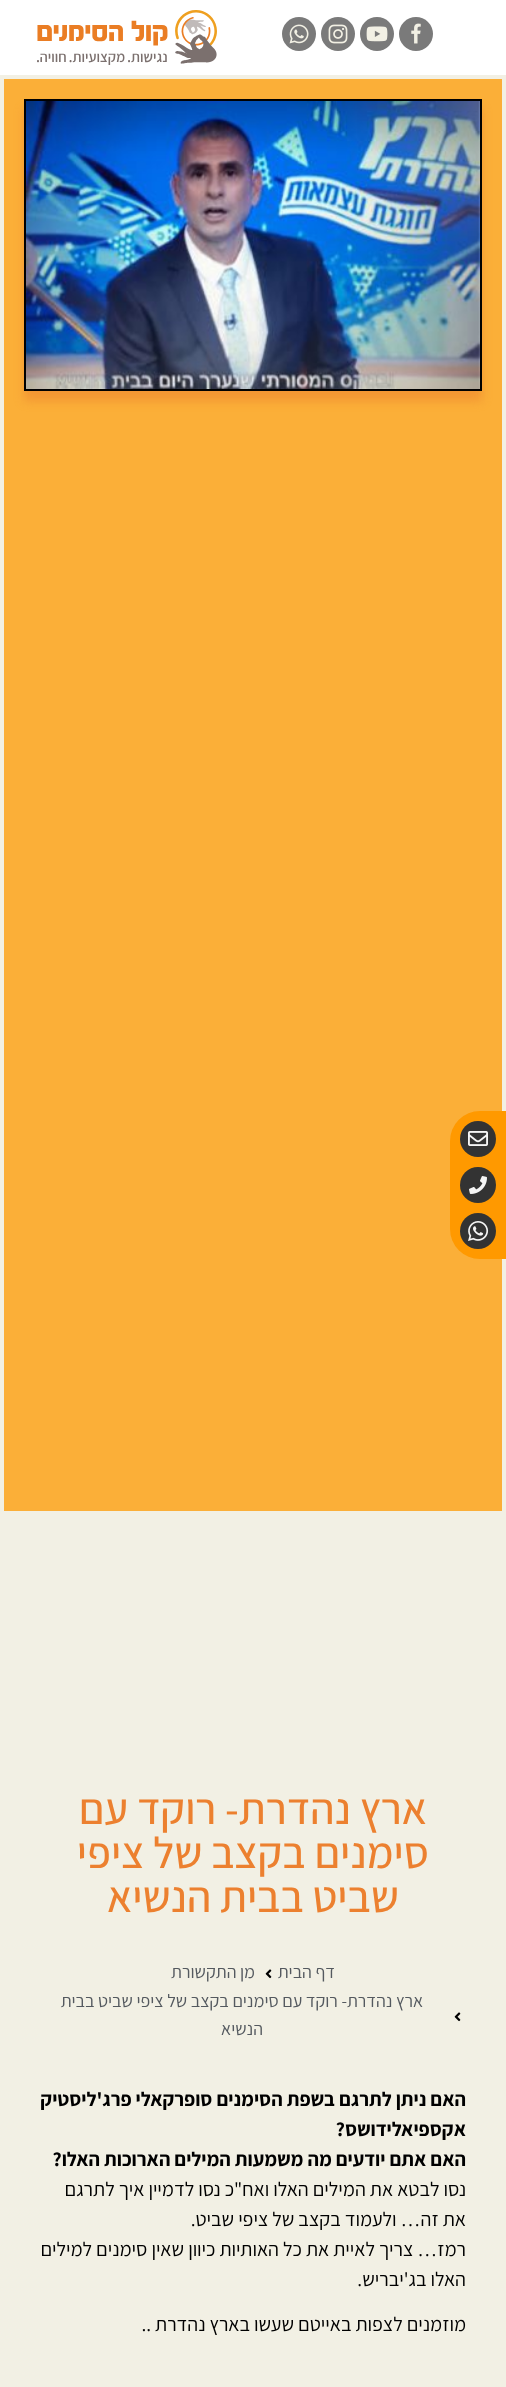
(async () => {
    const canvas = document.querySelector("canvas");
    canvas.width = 506;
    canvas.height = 2387;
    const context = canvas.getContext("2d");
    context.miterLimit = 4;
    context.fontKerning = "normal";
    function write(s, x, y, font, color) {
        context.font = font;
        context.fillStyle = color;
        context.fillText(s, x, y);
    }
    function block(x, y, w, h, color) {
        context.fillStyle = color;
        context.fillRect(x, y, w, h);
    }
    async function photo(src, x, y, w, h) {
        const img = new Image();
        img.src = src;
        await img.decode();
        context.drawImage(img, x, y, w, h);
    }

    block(0, 0, 506, 2387, "rgb(242, 240, 228)");
    block(0, 0, 506, 75, "rgb(255, 255, 255)");
    context.fillStyle = "rgb(122, 122, 122)";
    context.beginPath();
    context.arc(416, 34, 17, 0, Math.PI * 2);
    context.fill();
    await photo("media/1.png", 411, 23, 10, 21);
    context.beginPath();
    context.arc(377, 34, 17, 0, Math.PI * 2);
    context.fill();
    await photo("media/2.png", 366, 26, 22, 16);
    context.beginPath();
    context.arc(338, 34, 17, 0, Math.PI * 2);
    context.fill();
    await photo("media/3.png", 328, 24, 20, 20);
    context.beginPath();
    context.arc(299, 34, 17, 0, Math.PI * 2);
    context.fill();
    await photo("media/4.png", 289, 24, 20, 20);
    await photo("media/5.png", 37, 10, 180, 55);
    block(4, 79, 498, 1432, "rgb(251, 175, 56)");
    context.fillStyle = "rgb(255, 153, 0)";
    context.beginPath();
    context.roundRect(450, 1111, 56, 148, [30, 0, 0, 30]);
    context.fill();
    context.fillStyle = "rgb(51, 51, 51)";
    context.beginPath();
    context.arc(478, 1139, 18, 0, Math.PI * 2);
    context.fill();
    await photo("media/6.png", 468, 1131, 20, 15);
    context.beginPath();
    context.arc(478, 1185, 18, 0, Math.PI * 2);
    context.fill();
    await photo("media/7.png", 469, 1176, 18, 18);
    context.beginPath();
    context.arc(478, 1231, 18, 0, Math.PI * 2);
    context.fill();
    await photo("media/8.png", 468, 1221, 21, 20);
    context.fillStyle = "rgba(236, 128, 47, 0.51)";
    context.filter = "blur(5px)";
    context.beginPath();
    context.rect(24, 109, 458, 292);
    context.fill();
    context.filter = "none";
    context.strokeStyle = "rgb(0, 0, 0)";
    context.lineWidth = 2;
    context.strokeRect(25, 100, 456, 290);
    await photo("media/9.png", 26, 101, 454, 288);
    context.direction = "rtl";
    write("ארץ נהדרת- רוקד עם", 427, 1824, "500 44px Assistant", "rgb(236, 128, 47)");
    write("סימנים בקצב של ציפי", 429, 1868, "500 44px Assistant", "rgb(236, 128, 47)");
    write("שביט בבית הנשיא", 399, 1912, "500 44px Assistant", "rgb(236, 128, 47)");
    write("דף הבית", 335, 1978, "18px Assistant", "rgb(84, 89, 95)");
    await photo("media/10.png", 265, 1969, 7, 10);
    write("מן התקשורת", 255, 1978, "18px Assistant", "rgb(84, 89, 95)");
    await photo("media/10.png", 454, 2012, 7, 10);
    write("ארץ נהדרת- רוקד עם סימנים בקצב של ציפי שביט בבית", 423, 2007, "18px Assistant", "rgb(84, 89, 95)");
    write("הנשיא", 263, 2035, "18px Assistant", "rgb(84, 89, 95)");
    write("האם ניתן לתרגם בשפת הסימנים סופרקאלי פרג'ליסטיק", 466, 2106, "bold 20px Assistant", "rgb(0, 0, 0)");
    write("אקספיאלידושס?", 466, 2136, "bold 20px Assistant", "rgb(0, 0, 0)");
    write("האם אתם יודעים מה משמעות המילים הארוכות האלו?", 466, 2166, "bold 20px Assistant", "rgb(0, 0, 0)");
    write("נסו לבטא את המילים האלו ואח\"כ נסו לדמיין איך לתרגם", 466, 2196, "20px Assistant", "rgb(0, 0, 0)");
    write("את זה… ולעמוד בקצב של ציפי שביט.", 466, 2226, "20px Assistant", "rgb(0, 0, 0)");
    write("רמז… צריך לאיית את כל", 466, 2256, "20px Assistant", "rgb(0, 0, 0)");
    write("האותיות כיוון שאין סימנים למילים", 279, 2256, "20px Assistant", "rgb(0, 0, 0)");
    write("האלו בג'יבריש.", 466, 2286, "20px Assistant", "rgb(0, 0, 0)");
    write("מוזמנים לצפות באייטם שעשו בארץ נהדרת ..", 466, 2331, "20px Assistant", "rgb(0, 0, 0)");
})();
